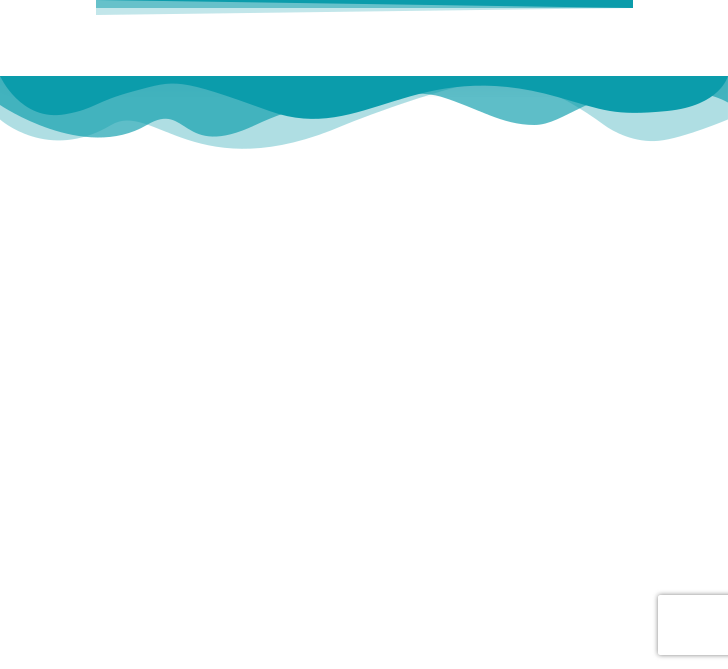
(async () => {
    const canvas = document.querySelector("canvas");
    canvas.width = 728;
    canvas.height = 669;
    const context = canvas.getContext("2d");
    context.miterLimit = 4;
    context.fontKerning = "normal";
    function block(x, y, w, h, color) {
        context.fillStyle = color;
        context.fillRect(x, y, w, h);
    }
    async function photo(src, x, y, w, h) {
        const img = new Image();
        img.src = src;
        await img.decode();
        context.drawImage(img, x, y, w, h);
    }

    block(0, 0, 728, 669, "rgb(255, 255, 255)");
    block(96, 0, 537, 8, "rgb(133, 206, 213)");
    context.save();
    context.beginPath();
    context.rect(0, 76, 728, 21);
    context.clip();
    context.fillStyle = "rgba(52, 64, 90, 0.15)";
    context.filter = "blur(12px)";
    context.beginPath();
    context.rect(0, 8, 728, 76);
    context.fill();
    context.filter = "none";
    context.restore();
    context.fillStyle = "rgb(11, 156, 171)";
    context.beginPath();
    context.moveTo(96, 0);
    context.lineTo(633, 0);
    context.lineTo(633, 8);
    context.closePath();
    context.fill();
    context.fillStyle = "rgba(11, 156, 171, 0.25)";
    context.beginPath();
    context.moveTo(633, 0);
    context.lineTo(96, 0);
    context.lineTo(96, 15);
    context.lineTo(633, 8);
    context.closePath();
    context.fill();
    await photo("media/1.png", 0, 76, 728, 73);
    context.save();
    context.beginPath();
    context.moveTo(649, 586);
    context.lineTo(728, 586);
    context.lineTo(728, 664);
    context.lineTo(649, 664);
    context.closePath();
    context.moveTo(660, 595);
    context.lineTo(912, 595);
    context.bezierCurveTo(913, 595, 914, 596, 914, 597);
    context.lineTo(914, 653);
    context.bezierCurveTo(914, 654, 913, 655, 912, 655);
    context.lineTo(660, 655);
    context.bezierCurveTo(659, 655, 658, 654, 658, 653);
    context.lineTo(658, 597);
    context.bezierCurveTo(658, 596, 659, 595, 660, 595);
    context.closePath();
    context.clip("evenodd");
    context.fillStyle = "rgb(128, 128, 128)";
    context.filter = "blur(2.5px)";
    context.beginPath();
    context.roundRect(658, 595, 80, 60, 2);
    context.fill();
    context.filter = "none";
    context.restore();
})();
